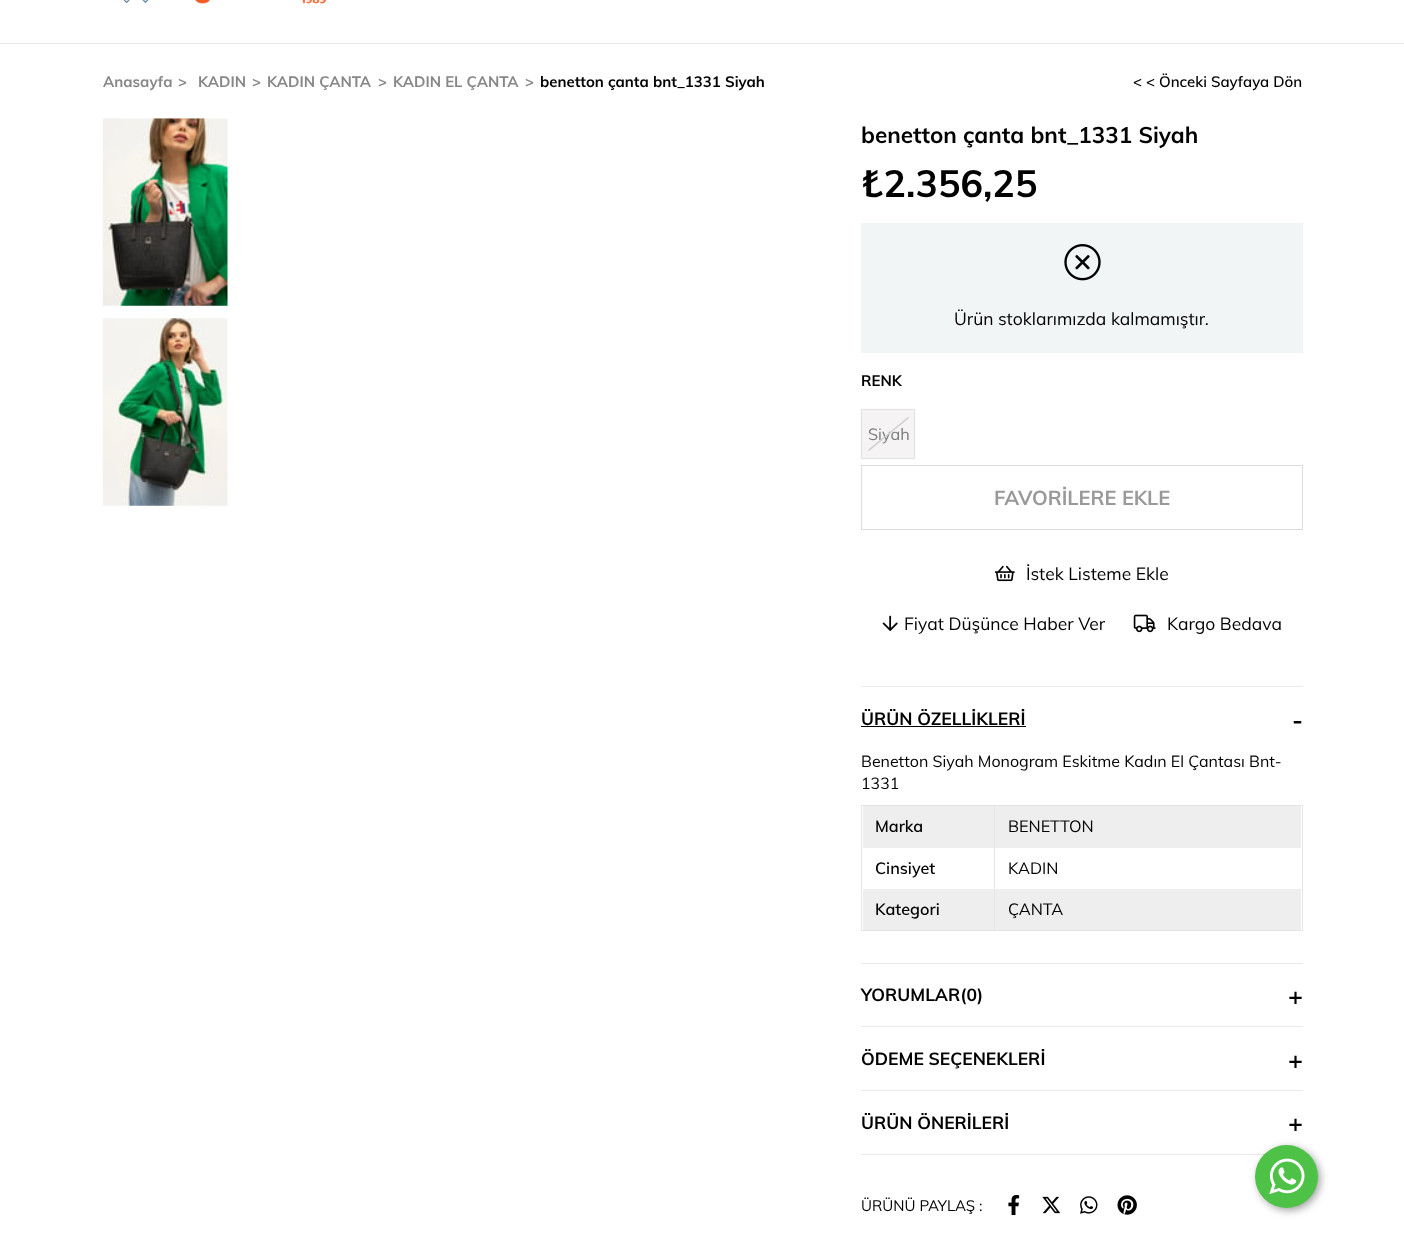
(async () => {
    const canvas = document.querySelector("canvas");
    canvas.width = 1404;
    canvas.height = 1245;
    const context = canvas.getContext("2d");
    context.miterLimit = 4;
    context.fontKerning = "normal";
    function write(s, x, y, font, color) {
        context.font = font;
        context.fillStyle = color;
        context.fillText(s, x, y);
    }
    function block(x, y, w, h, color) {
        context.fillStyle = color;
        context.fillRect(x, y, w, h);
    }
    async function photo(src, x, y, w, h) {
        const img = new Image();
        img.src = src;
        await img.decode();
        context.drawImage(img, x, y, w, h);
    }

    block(0, 0, 1404, 1245, "rgb(255, 255, 255)");
    block(0, 43, 1404, 1, "rgb(232, 231, 230)");
    await photo("media/1.png", 123, 0, 203, 4);
    write("Anasayfa", 103, 87, "bold 15px Muli", "rgb(135, 135, 135)");
    write(">", 178, 87, "bold 15px Muli", "rgb(135, 135, 135)");
    write("KADIN", 198, 87, "bold 15px Muli", "rgb(135, 135, 135)");
    write(">", 252, 87, "bold 15px Muli", "rgb(135, 135, 135)");
    write("KADIN ÇANTA", 267, 87, "bold 15px Muli", "rgb(135, 135, 135)");
    write(">", 378, 87, "bold 15px Muli", "rgb(135, 135, 135)");
    write("KADIN EL ÇANTA", 393, 87, "bold 15px Muli", "rgb(135, 135, 135)");
    write(">", 525, 87, "bold 15px Muli", "rgb(135, 135, 135)");
    write("benetton çanta bnt_1331 Siyah", 540, 87, "bold 15px Muli", "rgb(0, 0, 0)");
    write("< < Önceki Sayfaya Dön", 1133, 87, "600 15px Muli", "rgb(0, 0, 0)");
    await photo("media/2.png", 102, 118, 126, 188);
    await photo("media/3.png", 102, 318, 126, 188);
    write("benetton çanta bnt_1331 Siyah", 861, 143, "bold 22.5px Muli", "rgb(0, 0, 0)");
    write("₺2.356,25", 861, 197, "bold 37.5px Muli", "rgb(0, 0, 0)");
    block(861, 223, 442, 130, "rgb(242, 245, 246)");
    await photo("media/4.png", 1064, 244, 37, 37);
    write("Ürün stoklarımızda kalmamıştır.", 954, 325, "17.5px Muli", "rgb(0, 0, 0)");
    write("RENK", 861, 386, "bold 15px Muli", "rgb(0, 0, 0)");
    context.fillStyle = "rgb(245, 243, 243)";
    context.beginPath();
    context.rect(861.5, 409.5, 53, 49);
    context.fill();
    context.strokeStyle = "rgb(228, 223, 221)";
    context.stroke();
    write("Siyah", 868, 440, "16.25px Muli", "rgb(122, 121, 121)");
    context.fillStyle = "rgb(206, 206, 206)";
    context.beginPath();
    context.moveTo(909, 418);
    context.lineTo(869, 451);
    context.lineTo(868, 450);
    context.lineTo(908, 417);
    context.closePath();
    context.fill();
    context.strokeStyle = "rgb(221, 221, 221)";
    context.strokeRect(861.5, 465.5, 441, 64);
    write("FAVORİLERE EKLE", 994, 505, "bold 20px Muli", "rgb(153, 153, 153)");
    await photo("media/5.png", 995, 565, 20, 17);
    write("İstek Listeme Ekle", 1026, 580, "17.5px Muli", "rgb(0, 0, 0)");
    await photo("media/6.png", 882, 615, 16, 16);
    write("Fiyat Düşünce Haber Ver", 904, 630, "17.5px Muli", "rgb(0, 0, 0)");
    await photo("media/7.png", 1133, 614, 23, 19);
    write("Kargo Bedava", 1167, 630, "17.5px Muli", "rgb(0, 0, 0)");
    block(861, 686, 442, 1, "rgb(235, 233, 233)");
    block(861, 963, 442, 1, "rgb(235, 233, 233)");
    write("ÜRÜN ÖZELLİKLERİ", 861, 725, "bold 17.5px Muli", "rgb(0, 0, 0)");
    block(861, 726, 165, 1, "rgb(0, 0, 0)");
    write("-", 1292, 729, "bold 25px Muli", "rgb(0, 0, 0)");
    write("Benetton Siyah Monogram Eskitme Kadın El Çantası Bnt-", 861, 767, "16px Muli", "rgb(0, 0, 0)");
    write("1331", 861, 789, "16px Muli", "rgb(0, 0, 0)");
    context.strokeStyle = "rgb(229, 229, 229)";
    context.strokeRect(861.5, 805.5, 441, 125);
    block(863, 806, 438, 42, "rgb(238, 238, 238)");
    write("Marka", 875, 832, "600 16.25px Muli", "rgb(0, 0, 0)");
    block(863, 889, 438, 41, "rgb(238, 238, 238)");
    block(994, 806, 1, 124, "rgb(229, 229, 229)");
    write("BENETTON", 1008, 832, "16.25px Muli", "rgb(0, 0, 0)");
    write("Cinsiyet", 875, 874, "600 16.25px Muli", "rgb(0, 0, 0)");
    write("KADIN", 1008, 874, "16.25px Muli", "rgb(0, 0, 0)");
    write("Kategori", 875, 915, "600 16.25px Muli", "rgb(0, 0, 0)");
    write("ÇANTA", 1008, 915, "16.25px Muli", "rgb(0, 0, 0)");
    block(861, 1026, 442, 1, "rgb(235, 233, 233)");
    write("YORUMLAR(0)", 861, 1001, "bold 17.5px Muli", "rgb(0, 0, 0)");
    write("+", 1288, 1005, "bold 25px Muli", "rgb(0, 0, 0)");
    block(861, 1090, 442, 1, "rgb(235, 233, 233)");
    write("ÖDEME SEÇENEKLERİ", 861, 1065, "bold 17.5px Muli", "rgb(0, 0, 0)");
    write("+", 1288, 1069, "bold 25px Muli", "rgb(0, 0, 0)");
    block(861, 1154, 404, 1, "rgb(235, 233, 233)");
    write("ÜRÜN ÖNERİLERİ", 861, 1129, "bold 17.5px Muli", "rgb(0, 0, 0)");
    write("+", 1288, 1132, "bold 25px Muli", "rgb(0, 0, 0)");
    write("ÜRÜNÜ PAYLAŞ :", 861, 1211, "15px Muli", "rgb(0, 0, 0)");
    await photo("media/8.png", 1008, 1195, 12, 20);
    await photo("media/9.png", 1042, 1196, 19, 18);
    await photo("media/10.png", 1080, 1196, 18, 18);
    await photo("media/11.png", 1117, 1195, 20, 20);
    context.fillStyle = "rgba(0, 0, 0, 0.4)";
    context.filter = "blur(4px)";
    context.beginPath();
    context.roundRect(1258, 1148, 62, 62, 31);
    context.fill();
    context.filter = "none";
    context.fillStyle = "rgb(77, 194, 71)";
    context.beginPath();
    context.arc(1286.5, 1176.5, 31.5, 0, Math.PI * 2);
    context.fill();
    await photo("media/12.png", 1269, 1158, 36, 37);
})();
